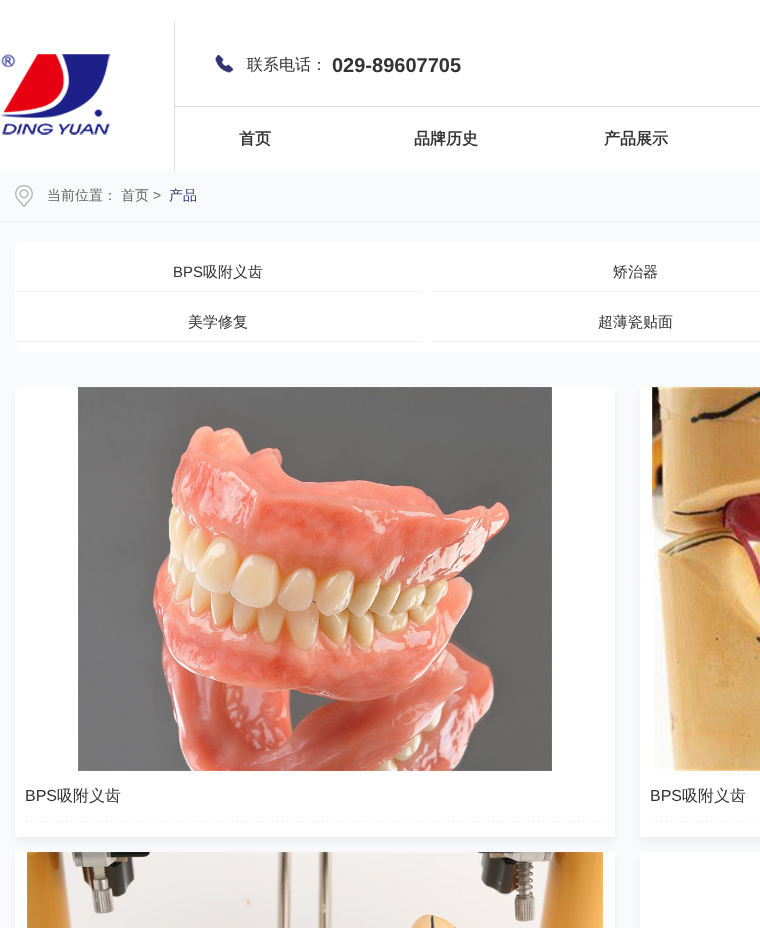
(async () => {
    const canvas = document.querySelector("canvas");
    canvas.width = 760;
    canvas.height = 928;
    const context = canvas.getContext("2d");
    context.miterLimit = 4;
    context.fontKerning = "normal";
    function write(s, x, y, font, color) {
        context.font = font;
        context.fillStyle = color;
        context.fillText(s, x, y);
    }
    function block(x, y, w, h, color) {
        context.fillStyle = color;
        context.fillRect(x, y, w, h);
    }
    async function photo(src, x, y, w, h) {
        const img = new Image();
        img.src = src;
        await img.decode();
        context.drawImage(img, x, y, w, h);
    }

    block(0, 0, 760, 928, "rgb(255, 255, 255)");
    await photo("media/1.png", 0, 54, 110, 81);
    block(174, 21, 1, 150, "rgb(221, 221, 221)");
    block(175, 106, 585, 1, "rgb(221, 221, 221)");
    await photo("media/2.png", 215, 55, 18, 18);
    write("联系电话：", 247, 70, "500 16px WenQuanYi Zen Hei", "rgb(51, 51, 51)");
    write("029-89607705", 332, 72, "bold 20px Liberation Sans", "rgb(51, 51, 51)");
    write("首页", 239, 144, "bold 16px WenQuanYi Zen Hei", "rgb(51, 51, 51)");
    write("品牌历史", 414, 144, "bold 16px WenQuanYi Zen Hei", "rgb(51, 51, 51)");
    write("产品展示", 604, 144, "bold 16px WenQuanYi Zen Hei", "rgb(51, 51, 51)");
    block(0, 171, 760, 757, "rgb(248, 250, 251)");
    block(0, 221, 760, 1, "rgb(242, 242, 242)");
    await photo("media/3.png", 15, 185, 18, 22);
    write("当前位置：", 47, 200, "500 14px WenQuanYi Zen Hei", "rgb(102, 102, 102)");
    write("首页", 121, 200, "500 14px WenQuanYi Zen Hei", "rgb(102, 102, 102)");
    write(">", 153, 200, "14px Liberation Sans", "rgb(102, 102, 102)");
    write("产品", 169, 200, "500 14px WenQuanYi Zen Hei", "rgb(51, 53, 112)");
    context.save();
    context.beginPath();
    context.roundRect(15, 242, 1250, 110, 6);
    context.clip();
    context.fillStyle = "rgb(255, 255, 255)";
    context.beginPath();
    context.moveTo(21, 242);
    context.lineTo(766, 242);
    context.lineTo(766, 352);
    context.lineTo(21, 352);
    context.bezierCurveTo(17.5, 352, 15, 349.5, 15, 346);
    context.lineTo(15, 248);
    context.bezierCurveTo(15, 244.5, 17.5, 242, 21, 242);
    context.closePath();
    context.fill();
    context.restore();
    block(15, 291, 407, 1, "rgb(240, 240, 240)");
    write("BPS", 173, 277, "15px Liberation Sans", "rgb(51, 51, 51)");
    write("吸附义齿", 203, 277, "500 15px WenQuanYi Zen Hei", "rgb(51, 51, 51)");
    block(432, 291, 328, 1, "rgb(240, 240, 240)");
    write("矫治器", 613, 277, "500 15px WenQuanYi Zen Hei", "rgb(51, 51, 51)");
    block(15, 341, 407, 1, "rgb(240, 240, 240)");
    write("美学修复", 188, 327, "500 15px WenQuanYi Zen Hei", "rgb(51, 51, 51)");
    block(432, 341, 328, 1, "rgb(240, 240, 240)");
    write("超薄瓷贴面", 598, 327, "500 15px WenQuanYi Zen Hei", "rgb(51, 51, 51)");
    context.fillStyle = "rgba(0, 0, 0, 0.05)";
    context.filter = "blur(5px)";
    context.beginPath();
    context.rect(15, 392, 600, 450);
    context.fill();
    context.filter = "none";
    block(15, 387, 600, 450, "rgb(255, 255, 255)");
    await photo("media/4.png", 78, 387, 474, 384);
    context.beginPath();
    context.moveTo(25, 821.5);
    context.lineTo(605, 821.5);
    context.strokeStyle = "rgb(244, 244, 244)";
    context.setLineDash([3, 2.02]);
    context.stroke();
    write("BPS", 25, 801, "16px Liberation Sans", "rgb(51, 51, 51)");
    write("吸附义齿", 57, 801, "500 16px WenQuanYi Zen Hei", "rgb(51, 51, 51)");
    context.fillStyle = "rgba(0, 0, 0, 0.05)";
    context.filter = "blur(5px)";
    context.beginPath();
    context.rect(640, 392, 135, 450);
    context.fill();
    context.filter = "none";
    block(640, 387, 120, 450, "rgb(255, 255, 255)");
    await photo("media/5.png", 652, 387, 108, 384);
    context.beginPath();
    context.moveTo(650, 821.5);
    context.lineTo(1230, 821.5);
    context.stroke();
    write("BPS", 650, 801, "16px Liberation Sans", "rgb(51, 51, 51)");
    write("吸附义齿", 682, 801, "500 16px WenQuanYi Zen Hei", "rgb(51, 51, 51)");
    context.fillStyle = "rgba(0, 0, 0, 0.05)";
    context.filter = "blur(5px)";
    context.beginPath();
    context.rect(15, 857, 600, 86);
    context.fill();
    context.filter = "none";
    block(15, 852, 600, 76, "rgb(255, 255, 255)");
    await photo("media/6.png", 27, 852, 576, 76);
    context.fillStyle = "rgba(0, 0, 0, 0.05)";
    context.filter = "blur(5px)";
    context.beginPath();
    context.rect(640, 857, 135, 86);
    context.fill();
    context.filter = "none";
    block(640, 852, 120, 76, "rgb(255, 255, 255)");
})();
